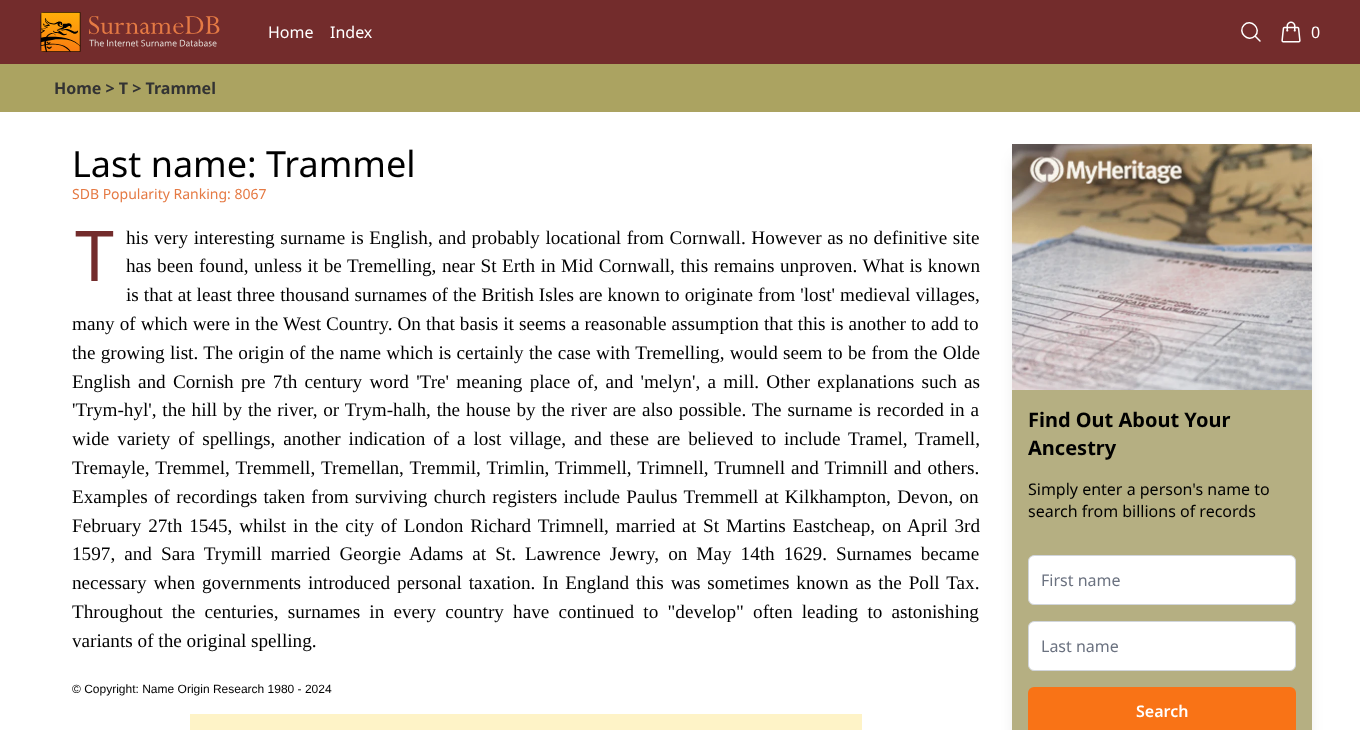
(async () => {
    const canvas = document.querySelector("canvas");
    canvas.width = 1360;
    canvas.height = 730;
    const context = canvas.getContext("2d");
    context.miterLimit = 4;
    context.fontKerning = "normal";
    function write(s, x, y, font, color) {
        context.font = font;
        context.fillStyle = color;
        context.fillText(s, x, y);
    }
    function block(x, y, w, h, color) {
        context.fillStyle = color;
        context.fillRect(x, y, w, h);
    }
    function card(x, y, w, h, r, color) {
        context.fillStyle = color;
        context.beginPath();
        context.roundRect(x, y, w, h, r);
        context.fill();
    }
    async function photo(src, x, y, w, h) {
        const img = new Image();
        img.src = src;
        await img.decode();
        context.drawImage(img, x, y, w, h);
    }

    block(0, 0, 1360, 730, "rgb(255, 255, 255)");
    block(0, 0, 1360, 64, "rgb(115, 44, 44)");
    await photo("media/1.png", 40, 12, 180, 40);
    write("Home", 268, 38, "16px Noto Sans", "rgb(255, 255, 255)");
    write("Index", 330, 38, "16px Noto Sans", "rgb(255, 255, 255)");
    context.beginPath();
    context.moveTo(1260, 41);
    context.lineTo(1255, 36);
    context.moveTo(1255, 36);
    context.bezierCurveTo(1262, 29, 1251, 18, 1244, 25);
    context.bezierCurveTo(1237, 32, 1248, 43, 1255, 36);
    context.closePath();
    context.strokeStyle = "rgb(255, 255, 255)";
    context.lineWidth = 1.5;
    context.lineCap = "round";
    context.lineJoin = "round";
    context.stroke();
    await photo("media/2.png", 1281, 21, 20, 22);
    write("0", 1311, 38, "16px Noto Sans", "rgb(255, 255, 255)");
    block(0, 64, 1360, 48, "rgb(171, 163, 97)");
    write("Home > T > Trammel", 54, 94, "bold 16px Noto Sans", "rgb(51, 51, 51)");
    write("Last name: Trammel", 72, 177, "36px Noto Sans", "rgb(0, 0, 0)");
    write("SDB Popularity Ranking: 8067", 72, 199, "14px Noto Sans", "rgb(229, 122, 68)");
    write("T", 75, 281, "70px Noto Sans", "rgb(115, 44, 44)");
    context.wordSpacing = "0.8px";
    write("his very interesting surname is English, and probably locational from Cornwall. However as no definitive site", 126, 244, "19.2px Liberation Serif", "rgb(0, 0, 0)");
    context.wordSpacing = "0.75px";
    write("has been found, unless it be Tremelling, near St Erth in Mid Cornwall, this remains unproven. What is known", 126, 272, "19.2px Liberation Serif", "rgb(0, 0, 0)");
    context.wordSpacing = "0.25px";
    write("is that at least three thousand surnames of the British Isles are known to originate from 'lost' medieval villages,", 126, 301, "19.2px Liberation Serif", "rgb(0, 0, 0)");
    write("many of which were in the West Country. On that basis it seems a reasonable assumption that this is another to add to", 72, 330, "19.2px Liberation Serif", "rgb(0, 0, 0)");
    context.wordSpacing = "0.5px";
    write("the growing list. The origin of the name which is certainly the case with Tremelling, would seem to be from the Olde", 72, 359, "19.2px Liberation Serif", "rgb(0, 0, 0)");
    context.wordSpacing = "2.5px";
    write("English and Cornish pre 7th century word 'Tre' meaning place of, and 'melyn', a mill. Other explanations such as", 72, 388, "19.2px Liberation Serif", "rgb(0, 0, 0)");
    context.wordSpacing = "1px";
    write("'Trym-hyl', the hill by the river, or Trym-halh, the house by the river are also possible. The surname is recorded in a", 72, 416, "19.2px Liberation Serif", "rgb(0, 0, 0)");
    context.wordSpacing = "3.1px";
    write("wide variety of spellings, another indication of a lost village, and these are believed to include Tramel, Tramell,", 72, 445, "19.2px Liberation Serif", "rgb(0, 0, 0)");
    context.wordSpacing = "1.25px";
    write("Tremayle, Tremmel, Tremmell, Tremellan, Tremmil, Trimlin, Trimmell, Trimnell, Trumnell and Trimnill and others.", 72, 474, "19.2px Liberation Serif", "rgb(0, 0, 0)");
    context.wordSpacing = "1.5px";
    write("Examples of recordings taken from surviving church registers include Paulus Tremmell at Kilkhampton, Devon, on", 72, 503, "19.2px Liberation Serif", "rgb(0, 0, 0)");
    context.wordSpacing = "2.1px";
    write("February 27th 1545, whilst in the city of London Richard Trimnell, married at St Martins Eastcheap, on April 3rd", 72, 532, "19.2px Liberation Serif", "rgb(0, 0, 0)");
    context.wordSpacing = "4.25px";
    write("1597, and Sara Trymill married Georgie Adams at St. Lawrence Jewry, on May 14th 1629. Surnames became", 72, 560, "19.2px Liberation Serif", "rgb(0, 0, 0)");
    context.wordSpacing = "2.1px";
    write("necessary when governments introduced personal taxation. In England this was sometimes known as the Poll Tax.", 72, 589, "19.2px Liberation Serif", "rgb(0, 0, 0)");
    context.wordSpacing = "4.4px";
    write("Throughout the centuries, surnames in every country have continued to \"develop\" often leading to astonishing", 72, 618, "19.2px Liberation Serif", "rgb(0, 0, 0)");
    context.wordSpacing = "0px";
    write("variants of the original spelling.", 72, 647, "19.2px Liberation Serif", "rgb(0, 0, 0)");
    write("© Copyright: Name Origin Research 1980 - 2024", 72, 693, "12px Liberation Sans", "rgb(0, 0, 0)");
    block(190, 714, 672, 16, "rgb(254, 243, 199)");
    context.fillStyle = "rgba(0, 0, 0, 0.1)";
    context.filter = "blur(7.5px)";
    context.beginPath();
    context.roundRect(1015, 157, 294, 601, 5);
    context.fill();
    context.filter = "none";
    block(1012, 390, 300, 340, "rgb(181, 175, 130)");
    await photo("media/3.png", 1012, 144, 300, 246);
    write("Find Out About Your", 1028, 427, "bold 20px Noto Sans", "rgb(0, 0, 0)");
    write("Ancestry", 1028, 455, "bold 20px Noto Sans", "rgb(0, 0, 0)");
    write("Simply enter a person's name to", 1028, 495, "16px Noto Sans", "rgb(0, 0, 0)");
    write("search from billions of records", 1028, 517, "16px Noto Sans", "rgb(0, 0, 0)");
    context.fillStyle = "rgb(255, 255, 255)";
    context.beginPath();
    context.roundRect(1028.5, 555.5, 267, 49, 5.5);
    context.fill();
    context.strokeStyle = "rgb(209, 213, 219)";
    context.lineWidth = 1;
    context.lineJoin = "miter";
    context.stroke();
    write("First name", 1041, 586, "16px Noto Sans", "rgb(107, 114, 128)");
    context.fillStyle = "rgb(255, 255, 255)";
    context.beginPath();
    context.roundRect(1028.5, 621.5, 267, 49, 5.5);
    context.fill();
    context.stroke();
    write("Last name", 1041, 652, "16px Noto Sans", "rgb(107, 114, 128)");
    card(1028, 687, 268, 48, 6, "rgb(249, 115, 22)");
    write("Search", 1136, 717, "600 16px Noto Sans", "rgb(255, 255, 255)");
})();
